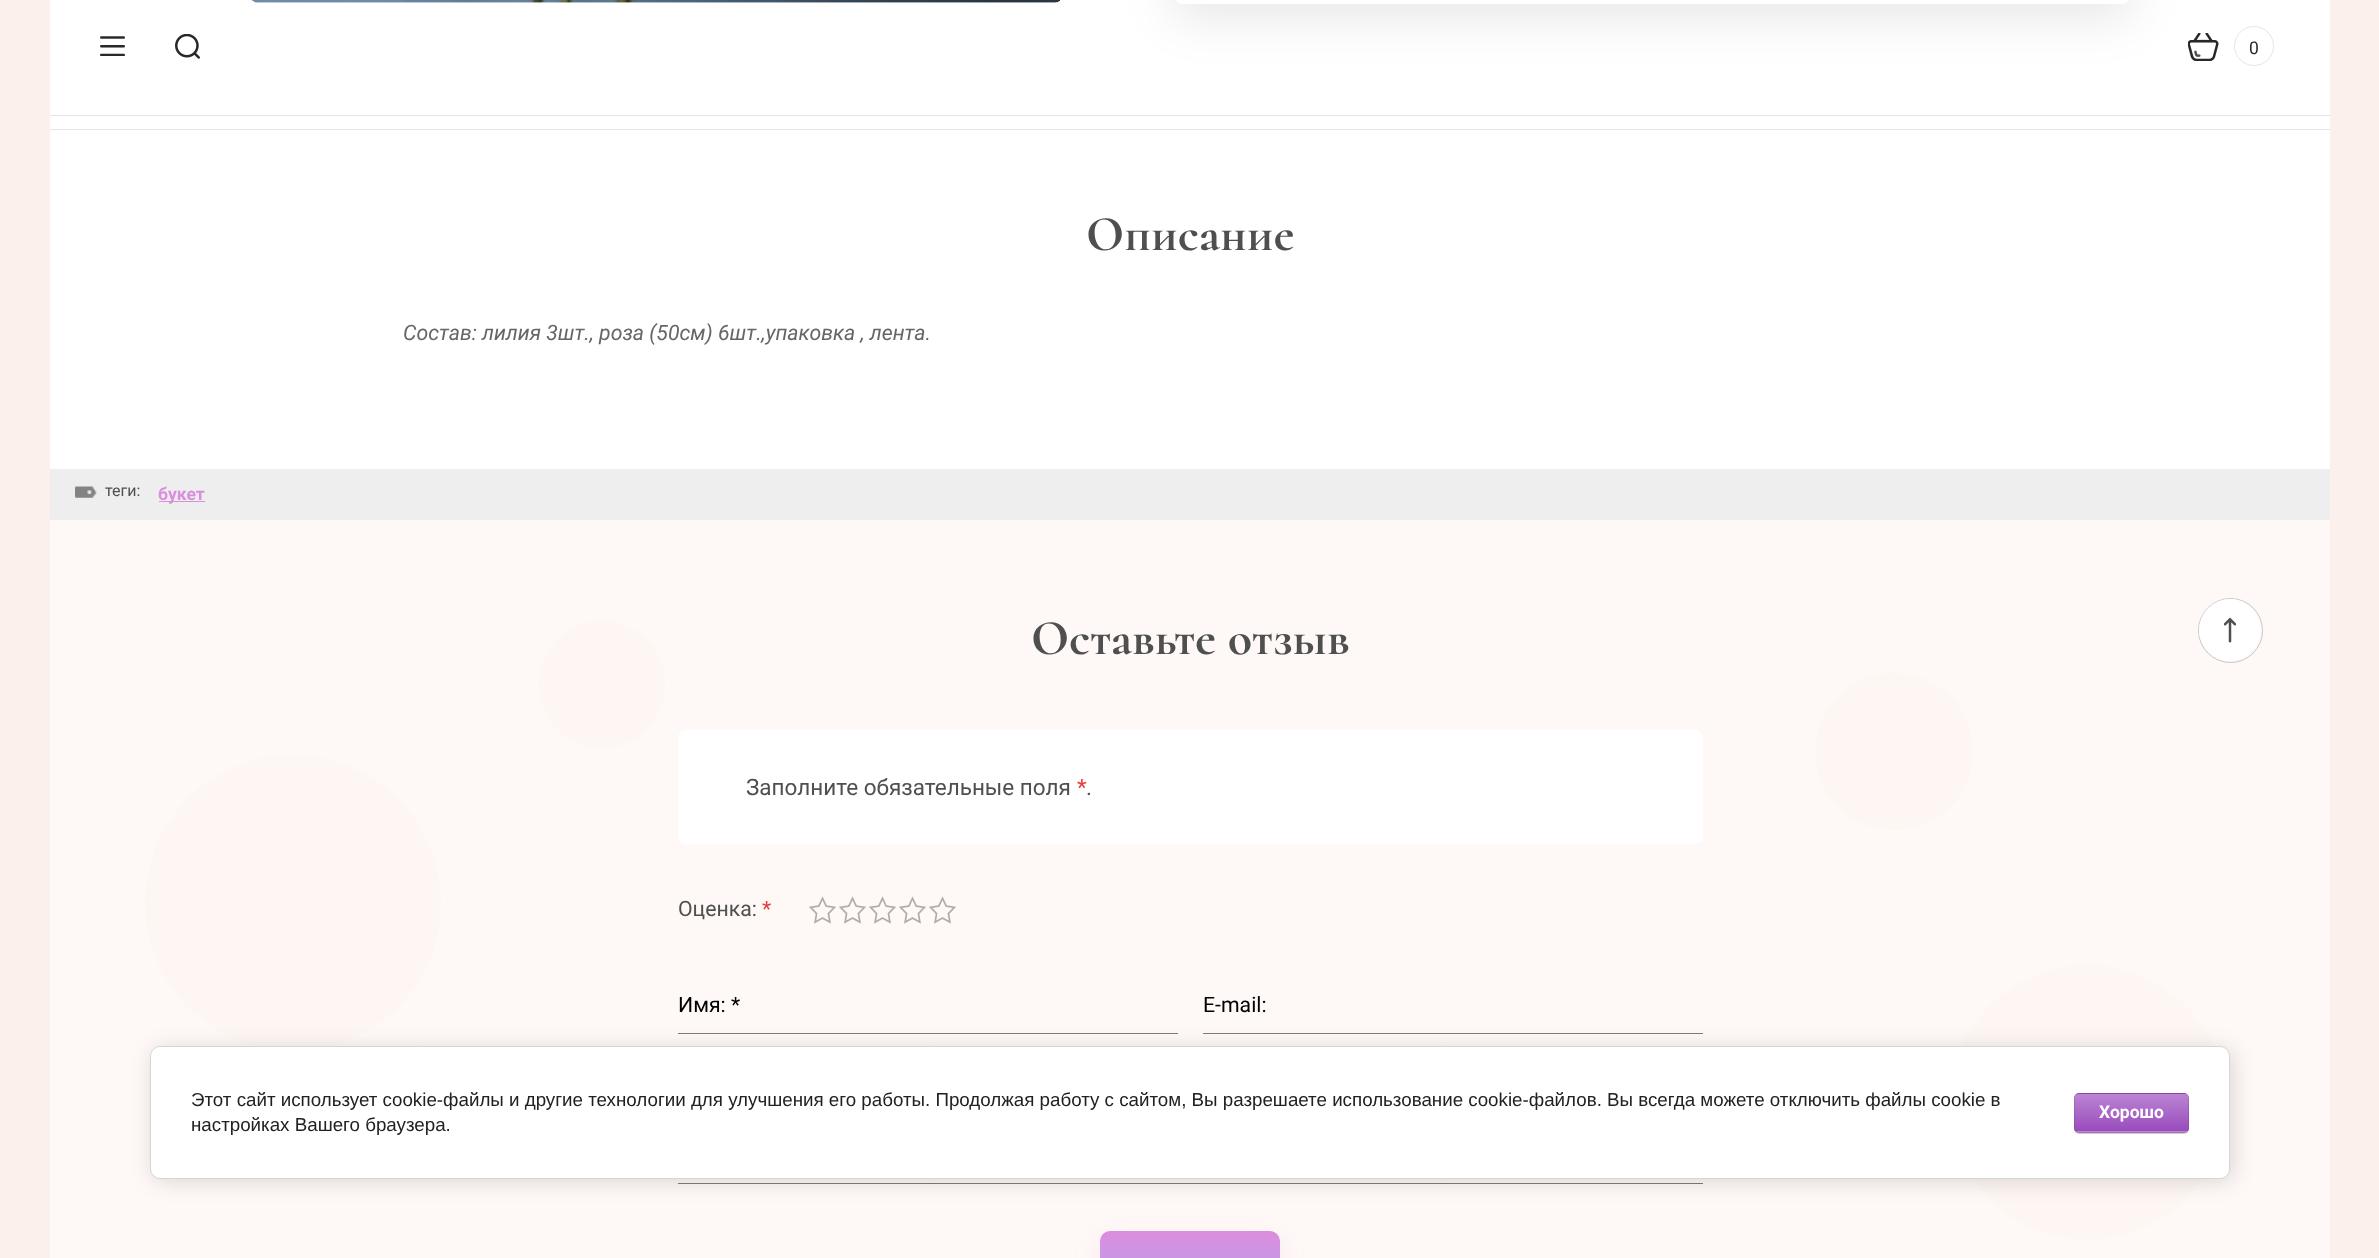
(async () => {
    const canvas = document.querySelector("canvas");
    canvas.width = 2379;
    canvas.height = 1258;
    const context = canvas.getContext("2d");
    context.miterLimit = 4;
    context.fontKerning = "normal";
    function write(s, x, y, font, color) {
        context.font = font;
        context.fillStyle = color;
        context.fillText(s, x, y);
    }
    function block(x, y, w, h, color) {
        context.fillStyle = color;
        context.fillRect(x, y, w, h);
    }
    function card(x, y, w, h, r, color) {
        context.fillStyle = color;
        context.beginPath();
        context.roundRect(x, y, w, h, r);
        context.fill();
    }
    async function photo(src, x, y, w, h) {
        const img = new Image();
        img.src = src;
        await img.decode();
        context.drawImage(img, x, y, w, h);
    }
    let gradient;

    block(0, 0, 2379, 1258, "rgb(252, 240, 237)");
    block(50, 0, 2280, 469, "rgb(255, 255, 255)");
    await photo("media/1.png", 100, 36, 25, 20);
    await photo("media/2.png", 175, 34, 25, 25);
    context.save();
    context.beginPath();
    context.moveTo(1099, 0);
    context.lineTo(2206, 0);
    context.lineTo(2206, 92);
    context.lineTo(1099, 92);
    context.closePath();
    context.moveTo(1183, -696);
    context.lineTo(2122, -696);
    context.bezierCurveTo(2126.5, -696, 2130, -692.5, 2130, -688);
    context.lineTo(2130, -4);
    context.bezierCurveTo(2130, 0.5, 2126.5, 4, 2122, 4);
    context.lineTo(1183, 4);
    context.bezierCurveTo(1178.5, 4, 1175, 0.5, 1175, -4);
    context.lineTo(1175, -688);
    context.bezierCurveTo(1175, -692.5, 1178.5, -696, 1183, -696);
    context.closePath();
    context.clip("evenodd");
    context.fillStyle = "rgba(0, 0, 0, 0.1)";
    context.filter = "blur(25px)";
    context.beginPath();
    context.roundRect(1175, -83, 955, 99, 8);
    context.fill();
    context.filter = "none";
    context.restore();
    await photo("media/3.png", 2188, 33, 31, 28);
    context.beginPath();
    context.arc(2254, 46, 19.5, 0, Math.PI * 2);
    context.strokeStyle = "rgb(230, 230, 230)";
    context.stroke();
    write("0", 2249, 54, "17.5px Roboto", "rgb(40, 40, 40)");
    await photo("media/4.png", 252, 0, 809, 3);
    block(50, 115, 2280, 1, "rgb(230, 230, 230)");
    block(50, 129, 2280, 1, "rgb(230, 230, 230)");
    write("Описание", 1086, 250, "bold 50px Cormorant", "rgb(79, 79, 79)");
    write("Состав: лилия 3шт., роза (50см) 6шт.,упаковка , лента.", 403, 340, "italic 21.25px Roboto", "rgb(102, 102, 102)");
    block(50, 469, 2280, 51, "rgb(238, 238, 238)");
    await photo("media/5.png", 75, 486, 22, 12);
    write("теги:", 105, 496, "16px Roboto", "rgb(79, 79, 79)");
    block(159, 501, 46, 1, "rgb(219, 142, 221)");
    write("букет", 158, 500, "bold 17.5px Roboto", "rgb(219, 142, 221)");
    block(50, 520, 2280, 738, "rgb(254, 248, 246)");
    context.fillStyle = "rgb(253, 246, 243)";
    context.beginPath();
    context.arc(293, 903, 148, 0, Math.PI * 2);
    context.fill();
    card(539, 621, 126, 127, 63, "rgb(253, 246, 243)");
    write("Оставьте отзыв", 1031, 654, "bold 50px Cormorant", "rgb(79, 79, 79)");
    card(678, 730, 1025, 114, 8, "rgb(255, 255, 255)");
    write("Заполните обязательные поля", 746, 795, "22.5px Roboto", "rgb(79, 79, 79)");
    write("*", 1077, 795, "22.5px Roboto", "rgb(235, 60, 60)");
    write(".", 1086, 795, "22.5px Roboto", "rgb(79, 79, 79)");
    write("Оценка:", 678, 916, "21.25px Roboto", "rgb(79, 79, 79)");
    write("*", 762, 916, "21.25px Roboto", "rgb(235, 60, 60)");
    await photo("media/6.png", 809, 896, 27, 28);
    await photo("media/6.png", 839, 896, 27, 28);
    await photo("media/6.png", 869, 896, 27, 28);
    await photo("media/6.png", 899, 896, 27, 28);
    await photo("media/6.png", 929, 896, 27, 28);
    block(678, 1033, 500, 1, "rgb(127, 124, 123)");
    write("Имя: *", 678, 1012, "21.25px Roboto", "rgb(0, 0, 0)");
    block(1203, 1033, 500, 1, "rgb(127, 124, 123)");
    write("E-mail:", 1203, 1012, "21.25px Roboto", "rgb(0, 0, 0)");
    block(678, 1183, 1025, 1, "rgb(127, 124, 123)");
    context.fillStyle = "rgba(219, 142, 221, 0.15)";
    context.filter = "blur(12.5px)";
    context.beginPath();
    context.roundRect(1100, 1241, 180, 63, 10);
    context.fill();
    context.filter = "none";
    gradient = context.createLinearGradient(1190, 1231, 1190, 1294);
    gradient.addColorStop(0, "rgb(219, 142, 221)");
    gradient.addColorStop(1, "rgb(180, 159, 240)");
    context.fillStyle = gradient;
    context.beginPath();
    context.roundRect(1100, 1231, 180, 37, 10);
    context.fill();
    card(1815, 673, 158, 157, 78.5, "rgb(253, 246, 243)");
    context.beginPath();
    context.arc(2087.5, 1102.5, 137.5, 0, Math.PI * 2);
    context.fill();
    context.beginPath();
    context.arc(2230.5, 630.5, 32, 0, Math.PI * 2);
    context.strokeStyle = "rgb(203, 198, 197)";
    context.stroke();
    context.fillStyle = "rgb(255, 255, 255)";
    context.beginPath();
    context.arc(2230, 630, 31, 0, Math.PI * 2);
    context.fill();
    await photo("media/7.png", 2224, 617, 12, 26);
    context.fillStyle = "rgba(0, 0, 0, 0.14)";
    context.filter = "blur(11px)";
    context.beginPath();
    context.roundRect(153, 1049, 2080, 132, 10);
    context.fill();
    context.filter = "none";
    context.fillStyle = "rgb(255, 255, 255)";
    context.beginPath();
    context.roundRect(150.5, 1046.5, 2079, 132, 9.5);
    context.fill();
    context.strokeStyle = "rgb(214, 214, 214)";
    context.stroke();
    write("Этот сайт использует cookie-файлы и другие технологии для улучшения его работы. Продолжая работу с сайтом, Вы разрешаете использование cookie-файлов. Вы всегда можете отключить файлы cookie в", 191, 1106, "18.75px Liberation Sans", "rgb(33, 33, 33)");
    write("настройках Вашего браузера.", 191, 1131, "18.75px Liberation Sans", "rgb(33, 33, 33)");
    context.fillStyle = "rgba(0, 0, 0, 0.2)";
    context.filter = "blur(0.5px)";
    context.beginPath();
    context.roundRect(2074, 1094, 115, 40, 5);
    context.fill();
    context.filter = "none";
    context.save();
    context.beginPath();
    context.roundRect(2074, 1093, 115, 40, 5);
    context.clip();
    gradient = context.createLinearGradient(2131, 1056, 2131, 1094);
    gradient.addColorStop(0, "rgb(186, 132, 210)");
    gradient.addColorStop(1, "rgb(154, 76, 189)");
    context.fillStyle = gradient;
    context.fillRect(2074, 1093, 115, 1);
    gradient = context.createLinearGradient(2131, 1094, 2131, 1131);
    gradient.addColorStop(0, "rgb(186, 132, 210)");
    gradient.addColorStop(1, "rgb(154, 76, 189)");
    context.fillStyle = gradient;
    context.fillRect(2074, 1094, 115, 37);
    gradient = context.createLinearGradient(2131, 1131, 2131, 1169);
    gradient.addColorStop(0, "rgb(186, 132, 210)");
    gradient.addColorStop(1, "rgb(154, 76, 189)");
    context.fillStyle = gradient;
    context.fillRect(2074, 1131, 115, 2);
    context.restore();
    context.beginPath();
    context.roundRect(2074.5, 1093.5, 114, 39, 4.5);
    context.strokeStyle = "rgba(0, 0, 0, 0.1)";
    context.stroke();
    write("Хорошо", 2099, 1118, "bold 17.5px Roboto", "rgb(255, 255, 255)");
})();
